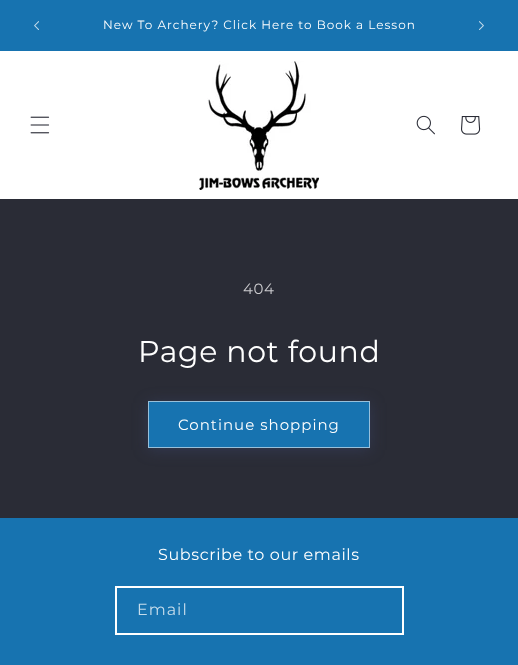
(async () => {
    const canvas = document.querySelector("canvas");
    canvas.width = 518;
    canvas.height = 665;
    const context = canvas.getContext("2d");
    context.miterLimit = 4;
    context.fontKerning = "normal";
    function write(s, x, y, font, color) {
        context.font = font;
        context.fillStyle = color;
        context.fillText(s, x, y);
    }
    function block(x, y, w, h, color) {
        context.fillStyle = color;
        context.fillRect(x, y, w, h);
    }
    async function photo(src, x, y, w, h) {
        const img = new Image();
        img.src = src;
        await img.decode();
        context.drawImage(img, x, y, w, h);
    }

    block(0, 0, 518, 665, "rgb(42, 44, 54)");
    block(0, 0, 518, 51, "rgb(23, 115, 176)");
    await photo("media/1.png", 34, 21, 5, 9);
    context.letterSpacing = "1px";
    write("New To Archery? Click Here to Book a Lesson", 103, 29, "12px Montserrat", "rgb(255, 255, 255)");
    await photo("media/2.png", 479, 21, 5, 9);
    block(0, 51, 518, 148, "rgb(255, 255, 255)");
    await photo("media/3.png", 30, 116, 20, 18);
    await photo("media/4.png", 199, 61, 120, 129);
    await photo("media/5.png", 416, 115, 19, 20);
    await photo("media/6.png", 461, 116, 20, 19);
    context.letterSpacing = "0.6px";
    write("404", 243, 294, "15px Montserrat", "rgb(202, 202, 205)");
    write("Page not found", 138, 362, "30px Montserrat", "rgb(255, 255, 255)");
    context.fillStyle = "rgba(65, 80, 131, 0.35)";
    context.filter = "blur(7.5px)";
    context.beginPath();
    context.rect(148, 403, 222, 47);
    context.fill();
    context.filter = "none";
    block(149, 402, 220, 45, "rgb(23, 115, 176)");
    context.strokeStyle = "rgb(151, 192, 219)";
    context.strokeRect(148.5, 401.5, 221, 46);
    context.letterSpacing = "1px";
    write("Continue shopping", 178, 430, "15px Montserrat", "rgb(255, 255, 255)");
    block(0, 518, 518, 147, "rgb(23, 115, 176)");
    context.letterSpacing = "0.6px";
    write("Subscribe to our emails", 158, 560, "16px Montserrat", "rgb(255, 255, 255)");
    context.strokeStyle = "rgb(255, 255, 255)";
    context.lineWidth = 2;
    context.strokeRect(116, 587, 287, 47);
    context.letterSpacing = "1px";
    write("Email", 137, 615, "16px Montserrat", "rgb(197, 220, 235)");
})();
